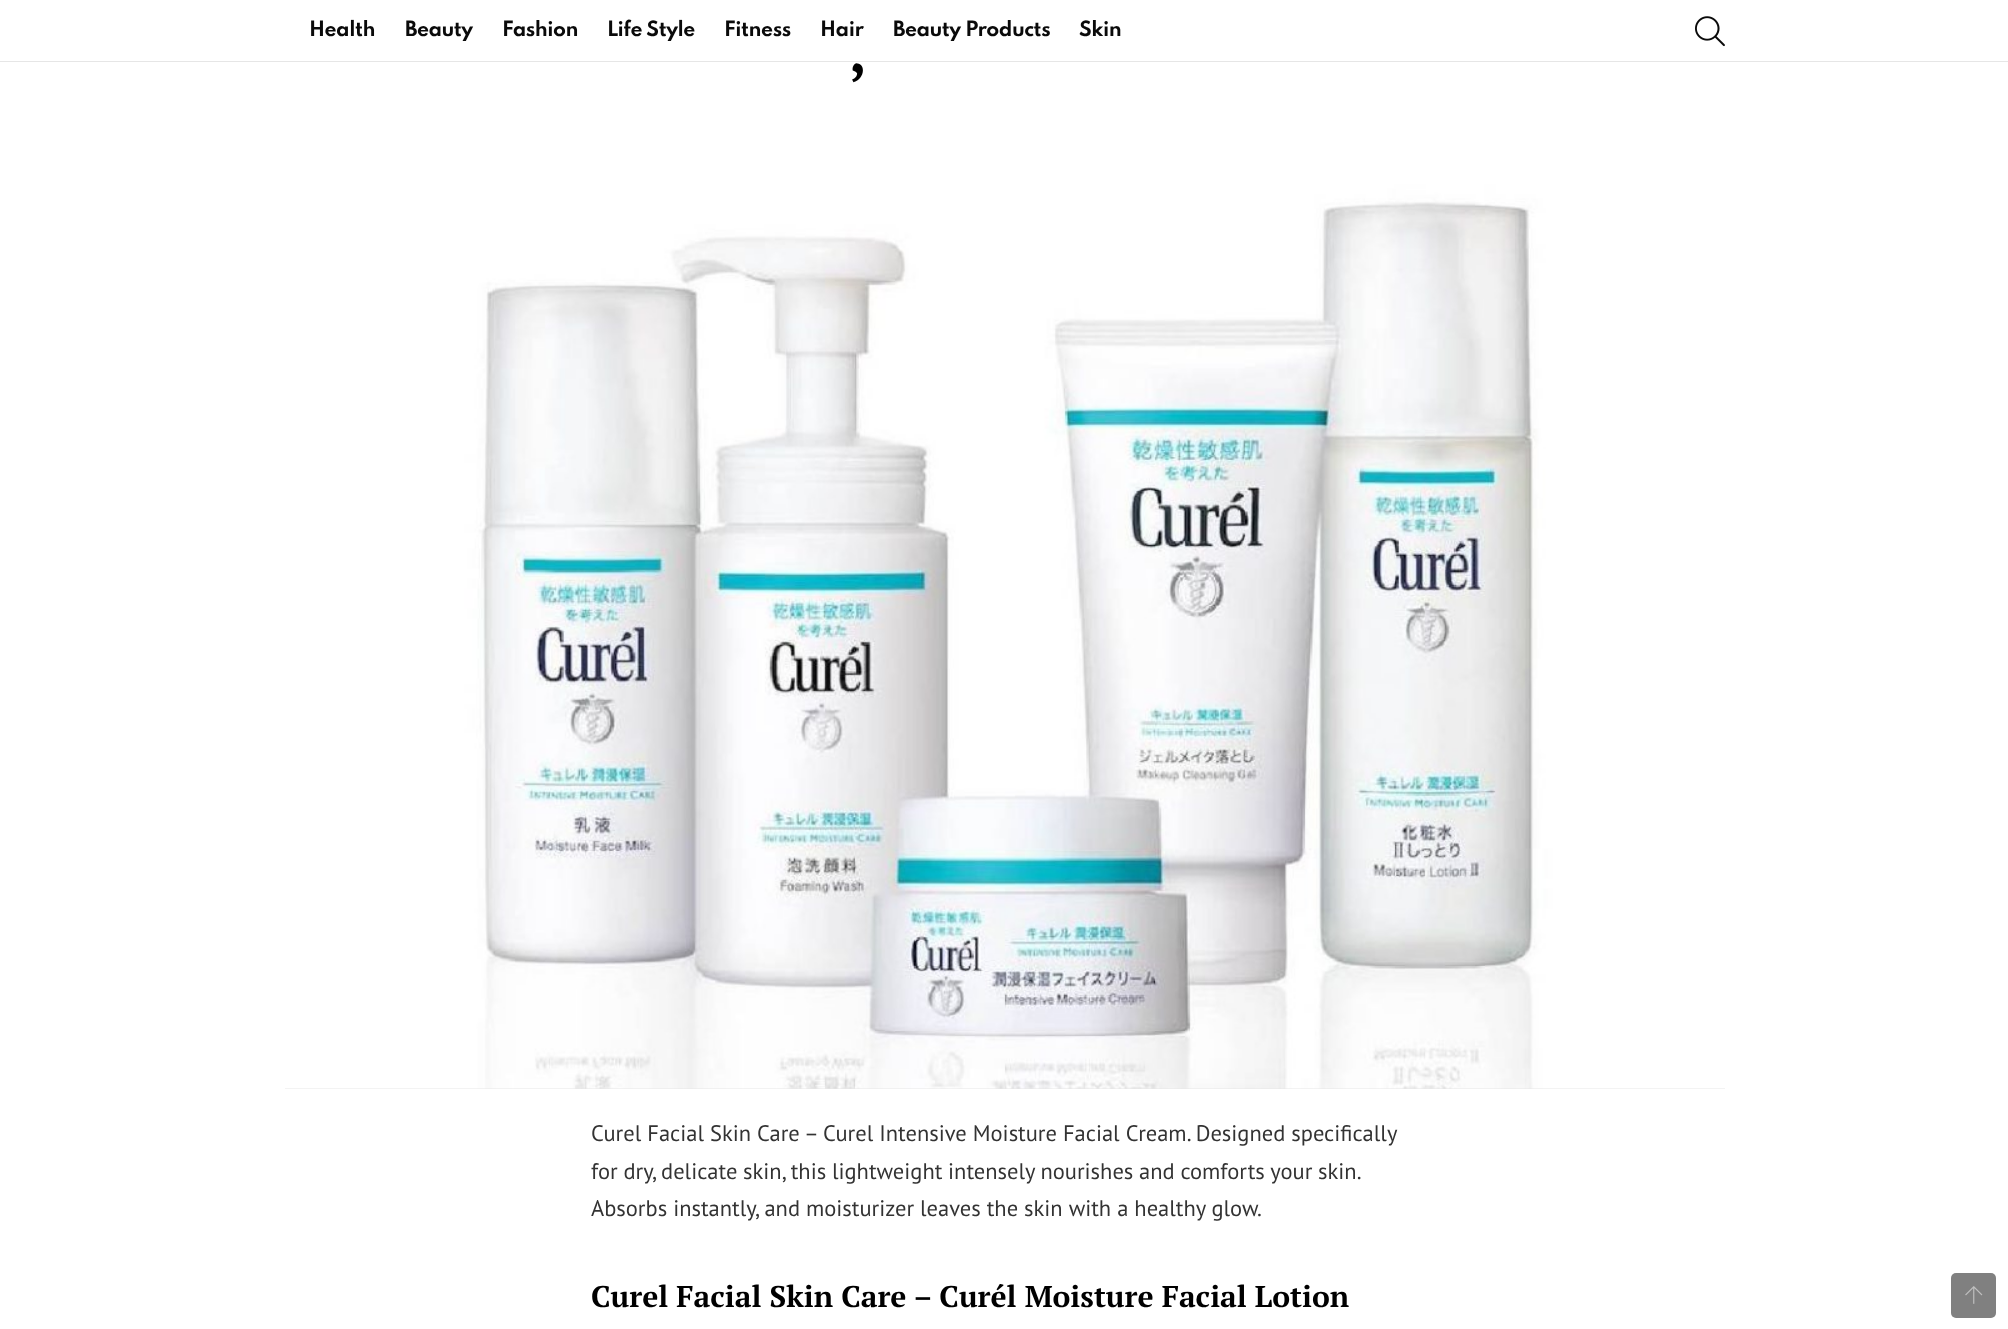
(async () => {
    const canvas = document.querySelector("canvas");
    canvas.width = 2008;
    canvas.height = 1329;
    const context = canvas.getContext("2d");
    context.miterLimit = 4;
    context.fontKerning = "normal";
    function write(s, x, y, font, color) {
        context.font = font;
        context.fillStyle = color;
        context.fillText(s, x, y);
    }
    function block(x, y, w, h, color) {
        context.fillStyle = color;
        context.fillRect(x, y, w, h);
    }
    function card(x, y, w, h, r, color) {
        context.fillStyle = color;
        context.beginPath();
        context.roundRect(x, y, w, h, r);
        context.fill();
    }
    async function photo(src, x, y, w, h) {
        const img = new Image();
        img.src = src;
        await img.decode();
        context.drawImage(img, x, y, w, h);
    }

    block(0, 0, 2008, 1329, "rgb(255, 255, 255)");
    context.letterSpacing = "-0.5px";
    write("Health", 309, 36, "bold 18.75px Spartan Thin", "rgb(10, 10, 10)");
    write("Beauty", 405, 36, "bold 18.75px Spartan Thin", "rgb(10, 10, 10)");
    write("Fashion", 502, 36, "bold 18.75px Spartan Thin", "rgb(10, 10, 10)");
    write("Life Style", 607, 36, "bold 18.75px Spartan Thin", "rgb(10, 10, 10)");
    write("Fitness", 724, 36, "bold 18.75px Spartan Thin", "rgb(10, 10, 10)");
    write("Hair", 820, 36, "bold 18.75px Spartan Thin", "rgb(10, 10, 10)");
    write("Beauty Products", 893, 36, "bold 18.75px Spartan Thin", "rgb(10, 10, 10)");
    write("Skin", 1079, 36, "bold 18.75px Spartan Thin", "rgb(10, 10, 10)");
    await photo("media/1.png", 1695, 16, 30, 31);
    block(0, 61, 2008, 1, "rgb(230, 230, 230)");
    context.letterSpacing = "0px";
    write(",", 849, 72, "bold 58px PT Serif", "rgb(0, 0, 0)");
    block(285, 1088, 1440, 1, "rgb(230, 230, 230)");
    await photo("media/2.png", 285, 129, 1440, 960);
    write("Curel Facial Skin Care – Curel Intensive Moisture Facial Cream. Designed specifically", 591, 1141, "22.5px PT Sans", "rgb(51, 51, 51)");
    context.wordSpacing = "-0.25px";
    write("for dry, delicate skin, this lightweight intensely nourishes and comforts your skin.", 591, 1179, "22.5px PT Sans", "rgb(51, 51, 51)");
    context.wordSpacing = "0px";
    write("Absorbs instantly, and moisturizer leaves the skin with a healthy glow.", 591, 1216, "22.5px PT Sans", "rgb(51, 51, 51)");
    write("Curel Facial Skin Care – Curél Moisture Facial Lotion", 591, 1307, "bold 30px PT Serif", "rgb(0, 0, 0)");
    card(1951, 1273, 45, 45, 5, "rgb(128, 128, 128)");
    await photo("media/3.png", 1965, 1286, 18, 18);
})();
